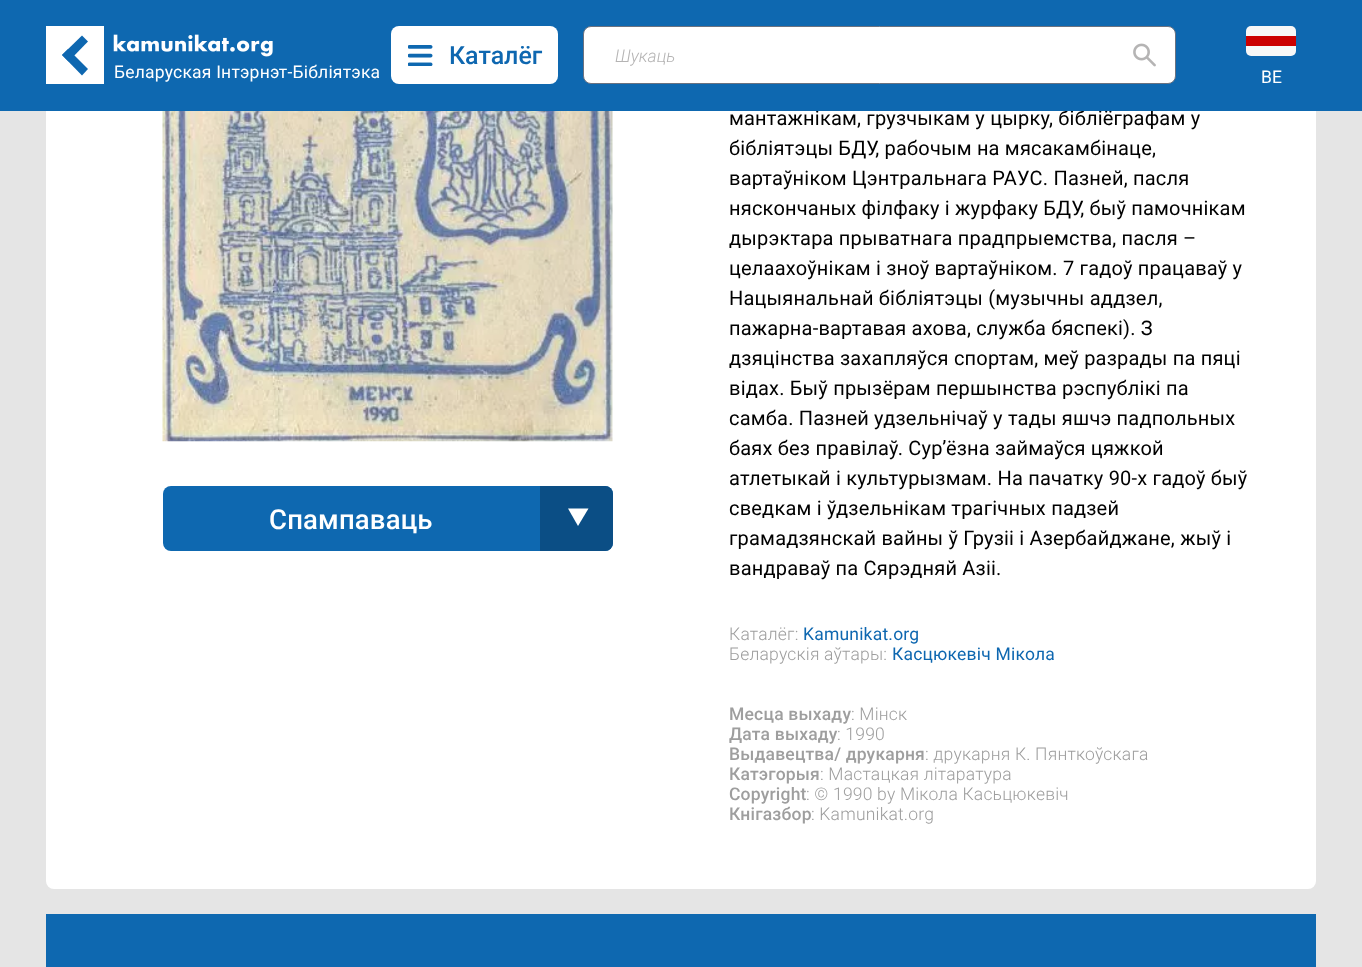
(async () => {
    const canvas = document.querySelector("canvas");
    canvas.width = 1362;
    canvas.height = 967;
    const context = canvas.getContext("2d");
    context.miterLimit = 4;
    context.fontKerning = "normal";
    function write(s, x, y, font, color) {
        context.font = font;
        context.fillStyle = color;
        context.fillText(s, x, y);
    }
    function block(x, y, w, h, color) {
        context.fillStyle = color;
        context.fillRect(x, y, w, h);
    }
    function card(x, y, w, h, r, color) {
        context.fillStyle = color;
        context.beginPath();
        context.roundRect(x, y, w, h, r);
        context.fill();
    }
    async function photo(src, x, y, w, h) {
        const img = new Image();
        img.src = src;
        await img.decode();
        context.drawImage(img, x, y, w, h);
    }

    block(0, 0, 1362, 967, "rgb(229, 229, 229)");
    card(46, -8, 1270, 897, 8, "rgb(255, 255, 255)");
    context.letterSpacing = "0.2px";
    write("мантажнікам, грузчыкам у цырку, бібліёграфам у", 729, 125, "20px Roboto", "rgb(0, 0, 0)");
    block(0, 0, 1362, 111, "rgb(14, 104, 176)");
    block(46, 26, 58, 58, "rgb(255, 255, 255)");
    context.fillStyle = "rgb(14, 103, 176)";
    context.beginPath();
    context.moveTo(62, 55);
    context.lineTo(68, 49);
    context.lineTo(88, 69);
    context.lineTo(82, 75.5);
    context.closePath();
    context.fill();
    context.beginPath();
    context.moveTo(68.5, 61.5);
    context.lineTo(62, 55);
    context.lineTo(82, 35.5);
    context.lineTo(88, 41.5);
    context.closePath();
    context.fill();
    card(391, 26, 167, 58, 8, "rgb(255, 255, 255)");
    await photo("media/1.png", 408, 45, 25, 21);
    context.letterSpacing = "0px";
    write("Каталёг", 449, 64, "500 25px Roboto", "rgb(14, 103, 176)");
    context.fillStyle = "rgb(255, 255, 255)";
    context.beginPath();
    context.roundRect(583.5, 26.5, 592, 57, 7.5);
    context.fill();
    context.strokeStyle = "rgb(107, 114, 128)";
    context.stroke();
    write("Шукаць", 615, 62, "italic 300 17.5px Roboto", "rgb(181, 180, 180)");
    await photo("media/2.png", 1133, 43, 23, 24);
    await photo("media/3.png", 113, 34, 160, 23);
    context.letterSpacing = "0.2px";
    write("Беларуская Інтэрнэт-Бібліятэка", 114, 78, "17.5px Roboto", "rgb(255, 255, 255)");
    context.fillStyle = "rgb(247, 247, 247)";
    context.beginPath();
    context.roundRect(1246, 26, 50, 10, [5, 5, 0, 0]);
    context.fill();
    context.beginPath();
    context.roundRect(1246, 46, 50, 10, [0, 0, 5, 5]);
    context.fill();
    block(1246, 36, 50, 10, "rgb(204, 0, 0)");
    write("BE", 1261, 83, "17.5px Roboto", "rgb(255, 255, 255)");
    await photo("media/4.png", 162, 111, 451, 331);
    card(163, 486, 450, 65, 8, "rgb(14, 104, 176)");
    write("Спампаваць", 269, 529, "500 27.5px Roboto", "rgb(255, 255, 255)");
    context.fillStyle = "rgb(11, 78, 133)";
    context.beginPath();
    context.roundRect(540, 486, 73, 65, [0, 8, 8, 0]);
    context.fill();
    context.fillStyle = "rgb(255, 255, 255)";
    context.beginPath();
    context.moveTo(578, 526);
    context.lineTo(588.5, 508.5);
    context.lineTo(568, 508.5);
    context.closePath();
    context.fill();
    write("бібліятэцы БДУ, рабочым на мясакамбінаце,", 729, 155, "20px Roboto", "rgb(0, 0, 0)");
    write("вартаўніком Цэнтральнага РАУС. Пазней, пасля", 729, 185, "20px Roboto", "rgb(0, 0, 0)");
    write("няскончаных філфаку і журфаку БДУ, быў памочнікам", 729, 215, "20px Roboto", "rgb(0, 0, 0)");
    write("дырэктара прыватнага прадпрыемства, пасля –", 729, 245, "20px Roboto", "rgb(0, 0, 0)");
    write("целаахоўнікам і зноў вартаўніком. 7 гадоў працаваў у", 729, 275, "20px Roboto", "rgb(0, 0, 0)");
    write("Нацыянальнай бібліятэцы (музычны аддзел,", 729, 305, "20px Roboto", "rgb(0, 0, 0)");
    write("пажарна-вартавая ахова, служба бяспекі). З", 729, 335, "20px Roboto", "rgb(0, 0, 0)");
    write("дзяцінства захапляўся спортам, меў разрады па пяці", 729, 365, "20px Roboto", "rgb(0, 0, 0)");
    write("відах. Быў прызёрам першынства рэспублікі па", 729, 395, "20px Roboto", "rgb(0, 0, 0)");
    write("самба. Пазней удзельнічаў у тады яшчэ падпольных", 729, 425, "20px Roboto", "rgb(0, 0, 0)");
    write("баях без правілаў. Сур’ёзна займаўся цяжкой", 729, 455, "20px Roboto", "rgb(0, 0, 0)");
    write("атлетыкай і культурызмам. На пачатку 90-х гадоў быў", 729, 485, "20px Roboto", "rgb(0, 0, 0)");
    write("сведкам і ўдзельнікам трагічных падзей", 729, 515, "20px Roboto", "rgb(0, 0, 0)");
    write("грамадзянскай вайны ў Грузіі і Азербайджане, жыў і", 729, 545, "20px Roboto", "rgb(0, 0, 0)");
    write("вандраваў па Сярэдняй Азіі.", 729, 575, "20px Roboto", "rgb(0, 0, 0)");
    write("Каталёг:", 729, 640, "300 17.5px Roboto", "rgb(158, 158, 158)");
    write("Kamunikat.org", 803, 640, "17.5px Roboto", "rgb(14, 103, 176)");
    write("Беларускія аўтары:", 729, 660, "300 17.5px Roboto", "rgb(158, 158, 158)");
    write("Касцюкевіч Мікола", 892, 660, "17.5px Roboto", "rgb(14, 103, 176)");
    write("Месца выхаду", 729, 720, "500 17.5px Roboto", "rgb(158, 158, 158)");
    write(": Мінск", 851, 720, "300 17.5px Roboto", "rgb(158, 158, 158)");
    write("Дата выхаду", 729, 740, "500 17.5px Roboto", "rgb(158, 158, 158)");
    write(": 1990", 837, 740, "300 17.5px Roboto", "rgb(158, 158, 158)");
    write("Выдавецтва/ друкарня", 729, 760, "500 17.5px Roboto", "rgb(158, 158, 158)");
    write(": друкарня К. Пянткоўскага", 925, 760, "300 17.5px Roboto", "rgb(158, 158, 158)");
    write("Катэгорыя", 729, 780, "500 17.5px Roboto", "rgb(158, 158, 158)");
    write(": Мастацкая літаратура", 820, 780, "300 17.5px Roboto", "rgb(158, 158, 158)");
    write("Copyright", 729, 800, "500 17.5px Roboto", "rgb(158, 158, 158)");
    write(": © 1990 by Мікола Касьцюкевіч", 806, 800, "300 17.5px Roboto", "rgb(158, 158, 158)");
    write("Кнігазбор", 729, 820, "500 17.5px Roboto", "rgb(158, 158, 158)");
    write(": Kamunikat.org", 811, 820, "300 17.5px Roboto", "rgb(158, 158, 158)");
    block(46, 914, 1270, 53, "rgb(14, 104, 176)");
})();
